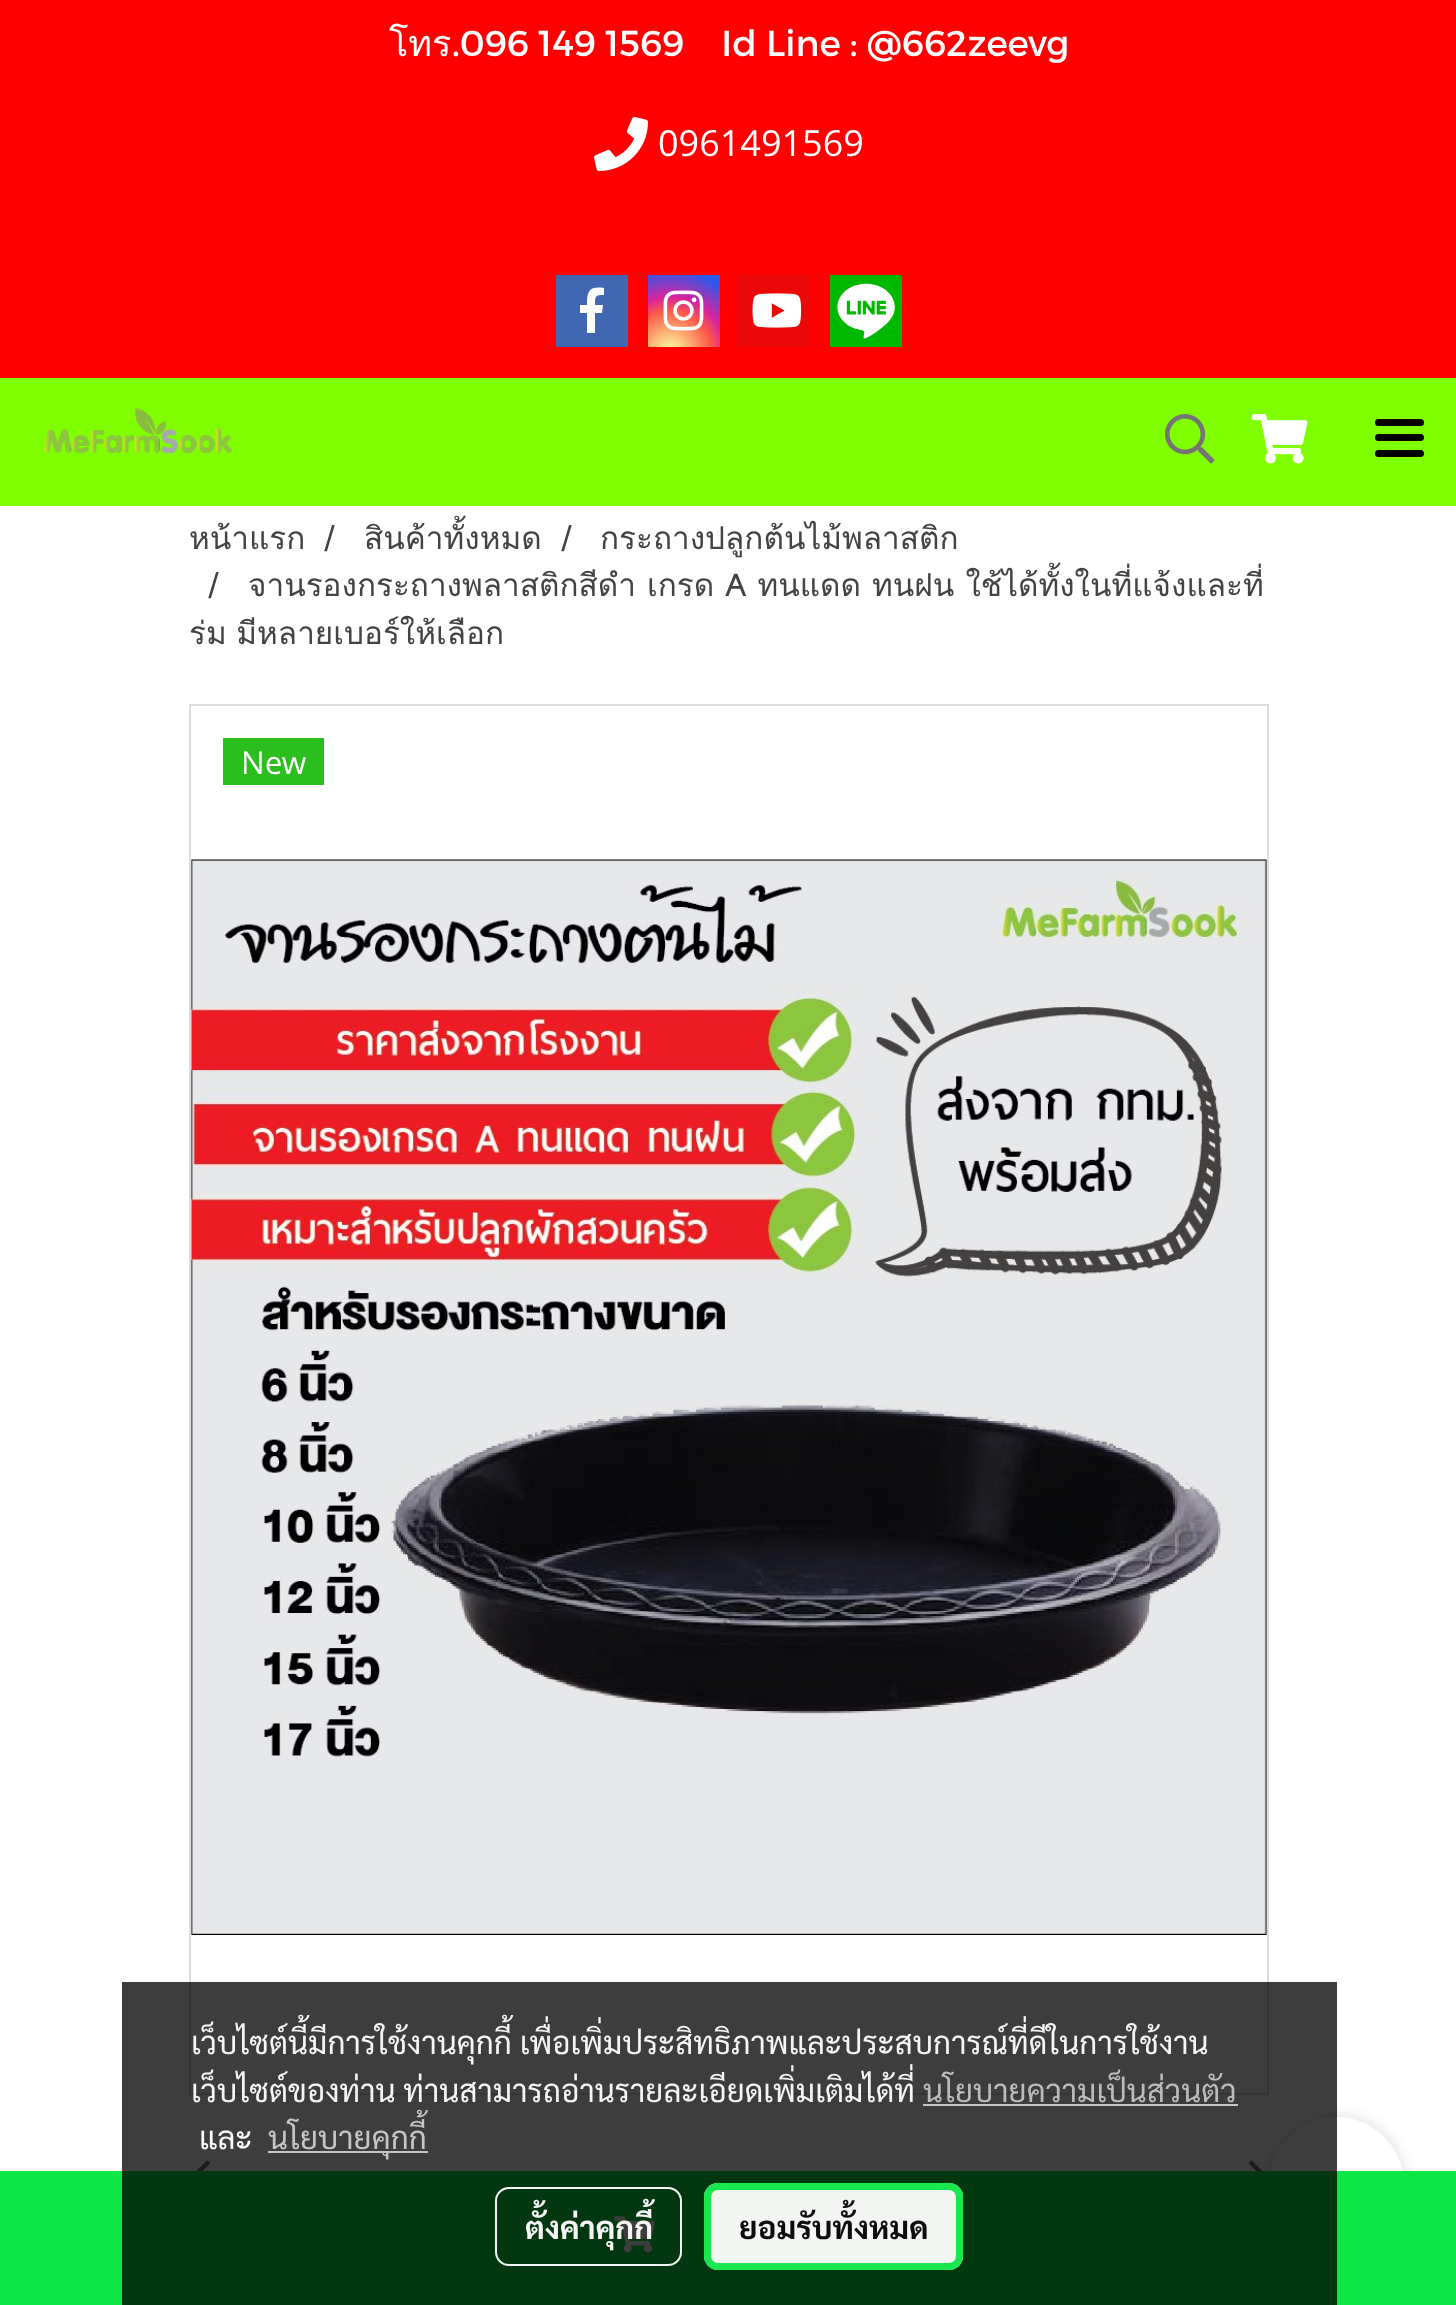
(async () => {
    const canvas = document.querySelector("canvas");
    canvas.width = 1456;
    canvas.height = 2305;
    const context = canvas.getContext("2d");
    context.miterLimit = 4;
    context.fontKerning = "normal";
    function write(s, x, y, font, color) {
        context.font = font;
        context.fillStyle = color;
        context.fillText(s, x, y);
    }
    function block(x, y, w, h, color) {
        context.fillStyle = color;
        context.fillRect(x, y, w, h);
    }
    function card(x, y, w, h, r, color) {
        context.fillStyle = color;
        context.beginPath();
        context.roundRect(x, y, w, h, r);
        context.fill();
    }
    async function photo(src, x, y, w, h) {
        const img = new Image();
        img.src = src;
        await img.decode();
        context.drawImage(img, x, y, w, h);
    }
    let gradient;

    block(0, 0, 1456, 2305, "rgb(255, 255, 255)");
    block(0, 378, 1456, 128, "rgb(127, 255, 0)");
    block(0, 0, 1456, 378, "rgb(255, 0, 0)");
    write("โทร", 389, 56, "36px Loma", "rgb(255, 255, 255)");
    write(".096 149 1569    Id Line : @662zeevg", 452, 56, "36px Montserrat", "rgb(255, 255, 255)");
    await photo("media/1.png", 594, 117, 54, 54);
    write("0961491569", 658, 156, "36px Open Sans", "rgb(255, 255, 255)");
    block(556, 275, 72, 72, "rgb(66, 103, 178)");
    context.fillStyle = "rgb(255, 255, 255)";
    context.beginPath();
    context.moveTo(587, 333);
    context.lineTo(587, 313);
    context.lineTo(580, 313);
    context.lineTo(580, 305);
    context.lineTo(587, 305);
    context.bezierCurveTo(587, 291, 589, 286, 604, 288);
    context.lineTo(604, 295);
    context.bezierCurveTo(595, 295, 595, 296, 595, 305);
    context.lineTo(603, 305);
    context.lineTo(602, 313);
    context.lineTo(595, 313);
    context.lineTo(595, 333);
    context.fill();
    gradient = context.createRadialGradient(670, 352, 0, 670, 352, 92);
    gradient.addColorStop(0, "rgb(253, 244, 151)");
    gradient.addColorStop(0.05, "rgb(253, 244, 151)");
    gradient.addColorStop(0.45, "rgb(253, 89, 73)");
    gradient.addColorStop(0.6, "rgb(214, 36, 159)");
    gradient.addColorStop(0.9, "rgb(40, 90, 235)");
    context.fillStyle = gradient;
    context.fillRect(648, 275, 72, 72);
    await photo("media/2.png", 663, 290, 41, 41);
    block(738, 275, 72, 72, "rgb(235, 8, 8)");
    await photo("media/3.png", 752, 293, 50, 35);
    block(830, 275, 72, 72, "rgb(0, 184, 0)");
    await photo("media/4.png", 837, 283, 69, 56);
    await photo("media/5.png", 44, 408, 188, 46);
    await photo("media/6.png", 1164, 414, 51, 50);
    await photo("media/7.png", 1251, 414, 57, 50);
    card(1375, 434, 49, 7, 3.5, "rgb(0, 0, 0)");
    card(1375, 419, 49, 7, 3.5, "rgb(0, 0, 0)");
    card(1375, 450, 49, 7, 3.5, "rgb(0, 0, 0)");
    write("หน้าแรก", 189, 549, "31.5px Loma", "rgb(67, 67, 67)");
    write("/", 323, 549, "31.5px Sanchez", "rgb(67, 67, 67)");
    write("สินค้าทั้งหมด", 364, 549, "31.5px Loma", "rgb(67, 67, 67)");
    write("/", 560, 549, "31.5px Sanchez", "rgb(67, 67, 67)");
    write("กระถางปลูกต้นไม้พลาสติก", 600, 549, "31.5px Loma", "rgb(67, 67, 67)");
    write("/", 207, 596, "31.5px Sanchez", "rgb(67, 67, 67)");
    context.wordSpacing = "0.5px";
    write("จานรองกระถางพลาสติกสีดำ เกรด A ทนแดด ทนฝน ใช้ได้ทั้งในที่แจ้งและที่", 248, 596, "31.5px Loma", "rgb(67, 67, 67)");
    context.wordSpacing = "-1px";
    write("ร่ม มีหลายเบอร์ให้เลือก", 189, 644, "31.5px Loma", "rgb(67, 67, 67)");
    context.strokeStyle = "rgb(221, 221, 221)";
    context.lineWidth = 2;
    context.strokeRect(190, 705, 1078, 1389);
    await photo("media/8.png", 191, 859, 1076, 1076);
    block(223, 738, 101, 47, "rgb(43, 190, 31)");
    context.wordSpacing = "0px";
    write("New", 241, 774, "31.5px Open Sans", "rgb(255, 255, 255)");
    await photo("media/9.png", 196, 2160, 14, 11);
    await photo("media/10.png", 1248, 2160, 15, 11);
    context.fillStyle = "rgba(0, 0, 0, 0.14)";
    context.filter = "blur(8px)";
    context.beginPath();
    context.roundRect(1269, 2117, 135, 135, 67.5);
    context.fill();
    context.filter = "none";
    context.fillStyle = "rgb(255, 255, 255)";
    context.beginPath();
    context.arc(1336.5, 2184.5, 67.5, 0, Math.PI * 2);
    context.fill();
    block(0, 2171, 1456, 134, "rgb(12, 231, 69)");
    await photo("media/11.png", 614, 2216, 41, 37);
    block(122, 1982, 1215, 323, "rgba(0, 0, 0, 0.76)");
    write("เว็บไซต์นี้มีการใช้งานคุกกี้ เพื่อเพิ่มประสิทธิภาพและประสบการณ์ที่ดีในการใช้งาน", 191, 2054, "31.5px Sarabun", "rgb(245, 245, 245)");
    write("เว็บไซต์ของท่าน ท่านสามารถอ่านรายละเอียดเพิ่มเติมได้ที่", 191, 2102, "31.5px Sarabun", "rgb(245, 245, 245)");
    write("นโยบายความเป็นส่วนตัว", 923, 2102, "31.5px Sarabun", "rgb(187, 187, 187)");
    block(923, 2104, 315, 2, "rgb(197, 197, 197)");
    write("และ", 199, 2149, "31.5px Sarabun", "rgb(255, 255, 255)");
    block(268, 2151, 160, 2, "rgb(197, 197, 197)");
    write("นโยบายคุกกี้", 268, 2149, "31.5px Sarabun", "rgb(197, 197, 197)");
    context.beginPath();
    context.roundRect(496, 2188, 185, 77, 13);
    context.strokeStyle = "rgba(255, 255, 255, 0.95)";
    context.stroke();
    write("ตั้งค่าคุกกี้", 525, 2239, "bold 31.5px Sarabun", "rgb(245, 245, 245)");
    card(704, 2183, 259, 87, 14, "rgba(255, 255, 255, 0.95)");
    context.beginPath();
    context.roundRect(707.5, 2186.5, 252, 80, 10.5);
    context.strokeStyle = "rgba(12, 231, 69, 0.95)";
    context.lineWidth = 7;
    context.stroke();
    write("ยอมรับทั้งหมด", 739, 2239, "bold 31.5px Sarabun", "rgb(12, 12, 12)");
})();
